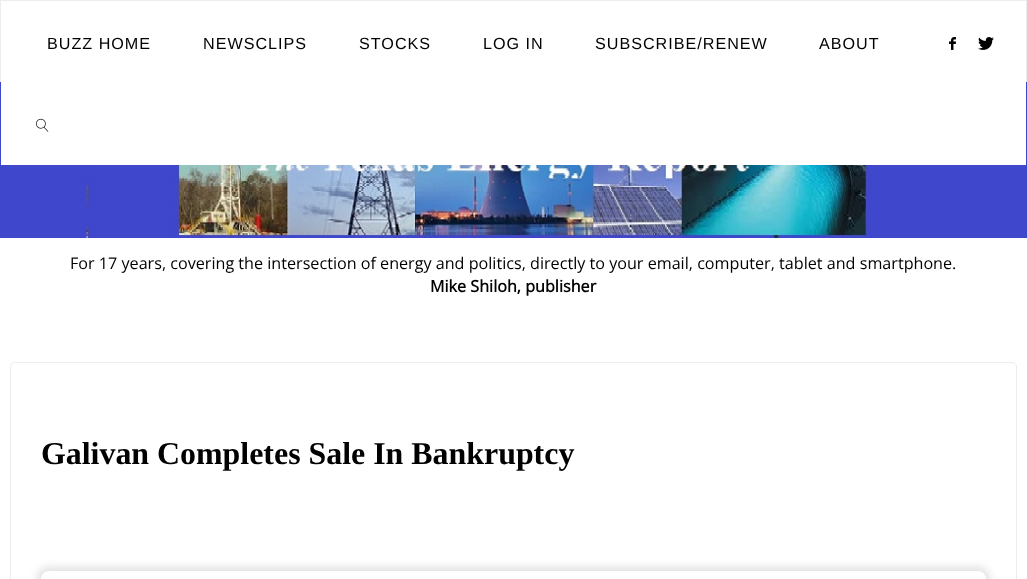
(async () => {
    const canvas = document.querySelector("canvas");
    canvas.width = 1027;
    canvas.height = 579;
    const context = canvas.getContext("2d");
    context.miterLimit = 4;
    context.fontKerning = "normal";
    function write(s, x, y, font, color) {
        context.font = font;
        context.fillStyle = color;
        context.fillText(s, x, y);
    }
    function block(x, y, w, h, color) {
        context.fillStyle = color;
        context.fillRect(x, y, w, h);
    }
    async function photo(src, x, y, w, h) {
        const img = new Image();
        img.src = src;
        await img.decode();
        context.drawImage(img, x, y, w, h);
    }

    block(0, 0, 1027, 579, "rgb(255, 255, 255)");
    context.strokeStyle = "rgb(237, 237, 237)";
    context.strokeRect(0.5, 0.5, 1026, 81);
    await photo("media/4.png", 0, 82, 1027, 156);
    block(1, 81, 1025, 84, "rgb(255, 255, 255)");
    context.letterSpacing = "1px";
    write("BUZZ HOME", 47, 49, "16.15px Liberation Sans", "rgb(0, 0, 0)");
    write("NEWSCLIPS", 203, 49, "16.15px Liberation Sans", "rgb(0, 0, 0)");
    write("STOCKS", 359, 49, "16.15px Liberation Sans", "rgb(0, 0, 0)");
    write("LOG IN", 483, 49, "16.15px Liberation Sans", "rgb(0, 0, 0)");
    write("SUBSCRIBE/RENEW", 595, 49, "16.15px Liberation Sans", "rgb(0, 0, 0)");
    write("ABOUT", 819, 49, "16.15px Liberation Sans", "rgb(0, 0, 0)");
    await photo("media/1.png", 36, 118, 13, 14);
    await photo("media/2.png", 949, 37, 7, 13);
    await photo("media/3.png", 978, 37, 16, 13);
    context.letterSpacing = "0px";
    write("For 17 years, covering the intersection of energy and politics, directly to your email, computer, tablet and smartphone.", 70, 269, "16.15px Open Sans", "rgb(0, 0, 0)");
    write("Mike Shiloh, publisher", 430, 292, "bold 16.15px Open Sans", "rgb(0, 0, 0)");
    context.beginPath();
    context.roundRect(10.5, 362.5, 1006, 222, 4.5);
    context.stroke();
    write("Galivan Completes Sale In Bankruptcy", 41, 464, "bold 31.9px Liberation Serif", "rgb(0, 0, 0)");
    context.fillStyle = "rgba(0, 0, 0, 0.12)";
    context.filter = "blur(4px)";
    context.beginPath();
    context.roundRect(37, 567, 953, 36, 12);
    context.fill();
    context.filter = "none";
    context.beginPath();
    context.roundRect(45, 575, 937, 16, 4);
    context.strokeStyle = "rgb(255, 255, 255)";
    context.lineWidth = 8;
    context.stroke();
})();
